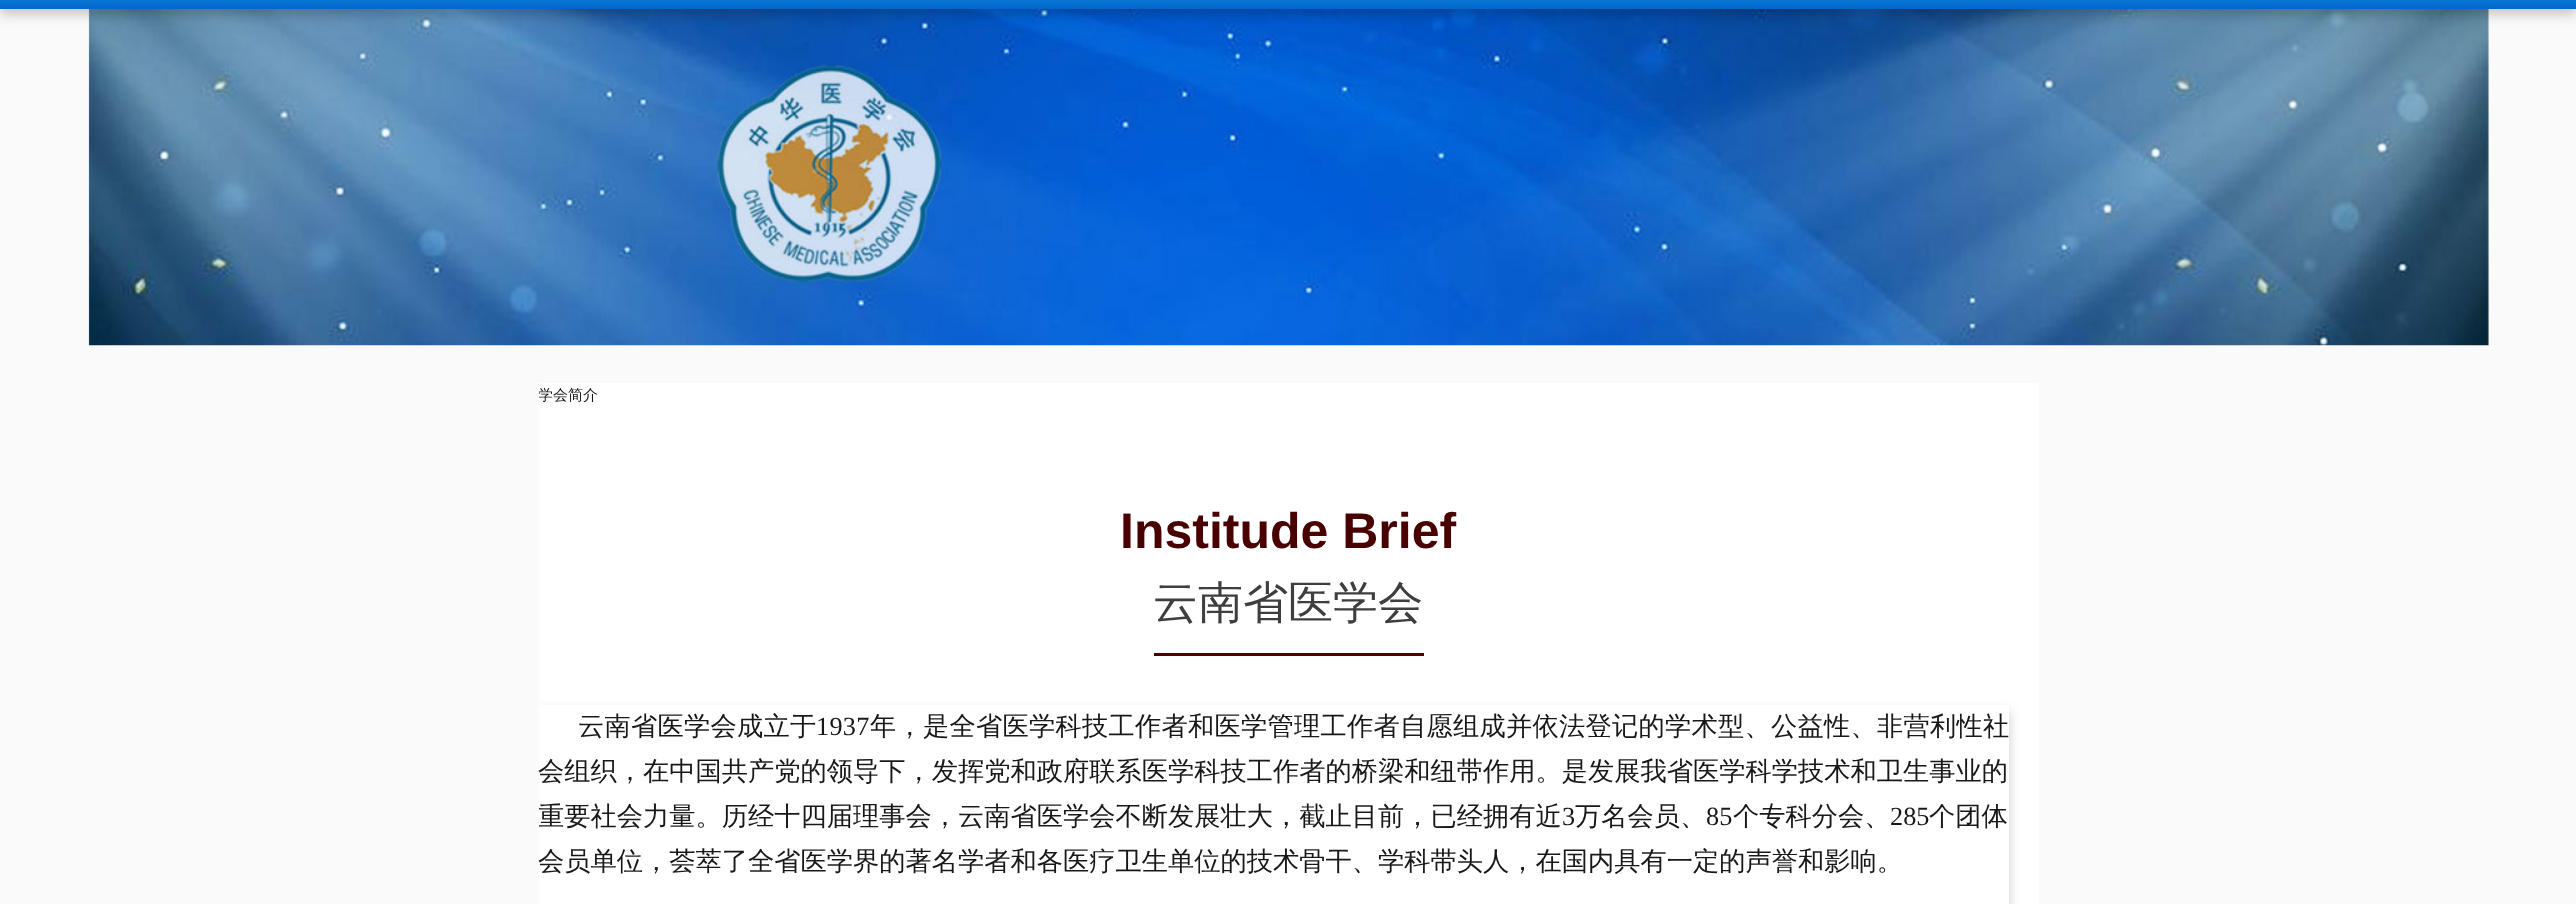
(async () => {
    const canvas = document.querySelector("canvas");
    canvas.width = 2576;
    canvas.height = 904;
    const context = canvas.getContext("2d");
    context.miterLimit = 4;
    context.fontKerning = "normal";
    function write(s, x, y, font, color) {
        context.font = font;
        context.fillStyle = color;
        context.fillText(s, x, y);
    }
    function block(x, y, w, h, color) {
        context.fillStyle = color;
        context.fillRect(x, y, w, h);
    }
    async function photo(src, x, y, w, h) {
        const img = new Image();
        img.src = src;
        await img.decode();
        context.drawImage(img, x, y, w, h);
    }
    let gradient;

    block(0, 0, 2576, 904, "rgb(250, 250, 250)");
    await photo("media/1.png", 88, 9, 2401, 337);
    context.fillStyle = "rgba(0, 0, 0, 0.2)";
    context.filter = "blur(6px)";
    context.beginPath();
    context.rect(0, -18, 2576, 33);
    context.fill();
    context.filter = "none";
    gradient = context.createLinearGradient(1288, -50, 1288, 9);
    gradient.addColorStop(0, "rgb(54, 205, 248)");
    gradient.addColorStop(1, "rgb(0, 102, 204)");
    context.fillStyle = gradient;
    context.fillRect(0, 0, 2576, 9);
    block(539, 383, 1500, 521, "rgb(255, 255, 255)");
    context.save();
    context.beginPath();
    context.rect(539, 383, 1500, 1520);
    context.clip();
    write("学会简介", 538, 400, "500 15px WenQuanYi Zen Hei", "rgb(25, 23, 23)");
    context.restore();
    write("Institude Brief", 1120, 548, "bold 50px Liberation Sans", "rgb(72, 0, 0)");
    block(1154, 653, 270, 3, "rgb(72, 0, 0)");
    write("云南省医学会", 1153, 618, "500 45px WenQuanYi Zen Hei", "rgb(62, 62, 62)");
    context.save();
    context.beginPath();
    context.rect(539, 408, 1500, 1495);
    context.clip();
    context.fillStyle = "rgba(0, 0, 0, 0.2)";
    context.filter = "blur(6px)";
    context.beginPath();
    context.rect(539, 711, 1470, 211);
    context.fill();
    context.filter = "none";
    context.restore();
    block(539, 705, 1470, 199, "rgb(255, 255, 255)");
    context.letterSpacing = "0.25px";
    write("云南省医学会成立于", 578, 735, "500 26.25px WenQuanYi Zen Hei", "rgb(25, 23, 23)");
    write("1937", 816, 735, "26.25px Liberation Serif", "rgb(25, 23, 23)");
    write("年，是全省医学科技工作者和医学管理工作者自愿组成并依法登记的学术型、公益性、非营利性社", 870, 735, "500 26.25px WenQuanYi Zen Hei", "rgb(25, 23, 23)");
    context.letterSpacing = "0px";
    write("会组织，在中国共产党的领导下，发挥党和政府联系医学科技工作者的桥梁和纽带作用。是发展我省医学科学技术和卫生事业的", 538, 780, "500 26.25px WenQuanYi Zen Hei", "rgb(25, 23, 23)");
    context.save();
    context.beginPath();
    context.rect(539, 408, 1500, 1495);
    context.clip();
    write("重要社会力量。历经十四届理事会，云南省医学会不断发展壮大，截止目前，已经拥有近", 538, 825, "500 26.25px WenQuanYi Zen Hei", "rgb(25, 23, 23)");
    context.restore();
    write("3", 1562, 825, "26.25px Liberation Serif", "rgb(25, 23, 23)");
    write("万名会员、", 1575, 825, "500 26.25px WenQuanYi Zen Hei", "rgb(25, 23, 23)");
    write("85", 1706, 825, "26.25px Liberation Serif", "rgb(25, 23, 23)");
    write("个专科分会、", 1733, 825, "500 26.25px WenQuanYi Zen Hei", "rgb(25, 23, 23)");
    write("285", 1890, 825, "26.25px Liberation Serif", "rgb(25, 23, 23)");
    write("个团体", 1929, 825, "500 26.25px WenQuanYi Zen Hei", "rgb(25, 23, 23)");
    write("会员单位，荟萃了全省医学界的著名学者和各医疗卫生单位的技术骨干、学科带头人，在国内具有一定的声誉和影响。", 538, 870, "500 26.25px WenQuanYi Zen Hei", "rgb(25, 23, 23)");
})();
